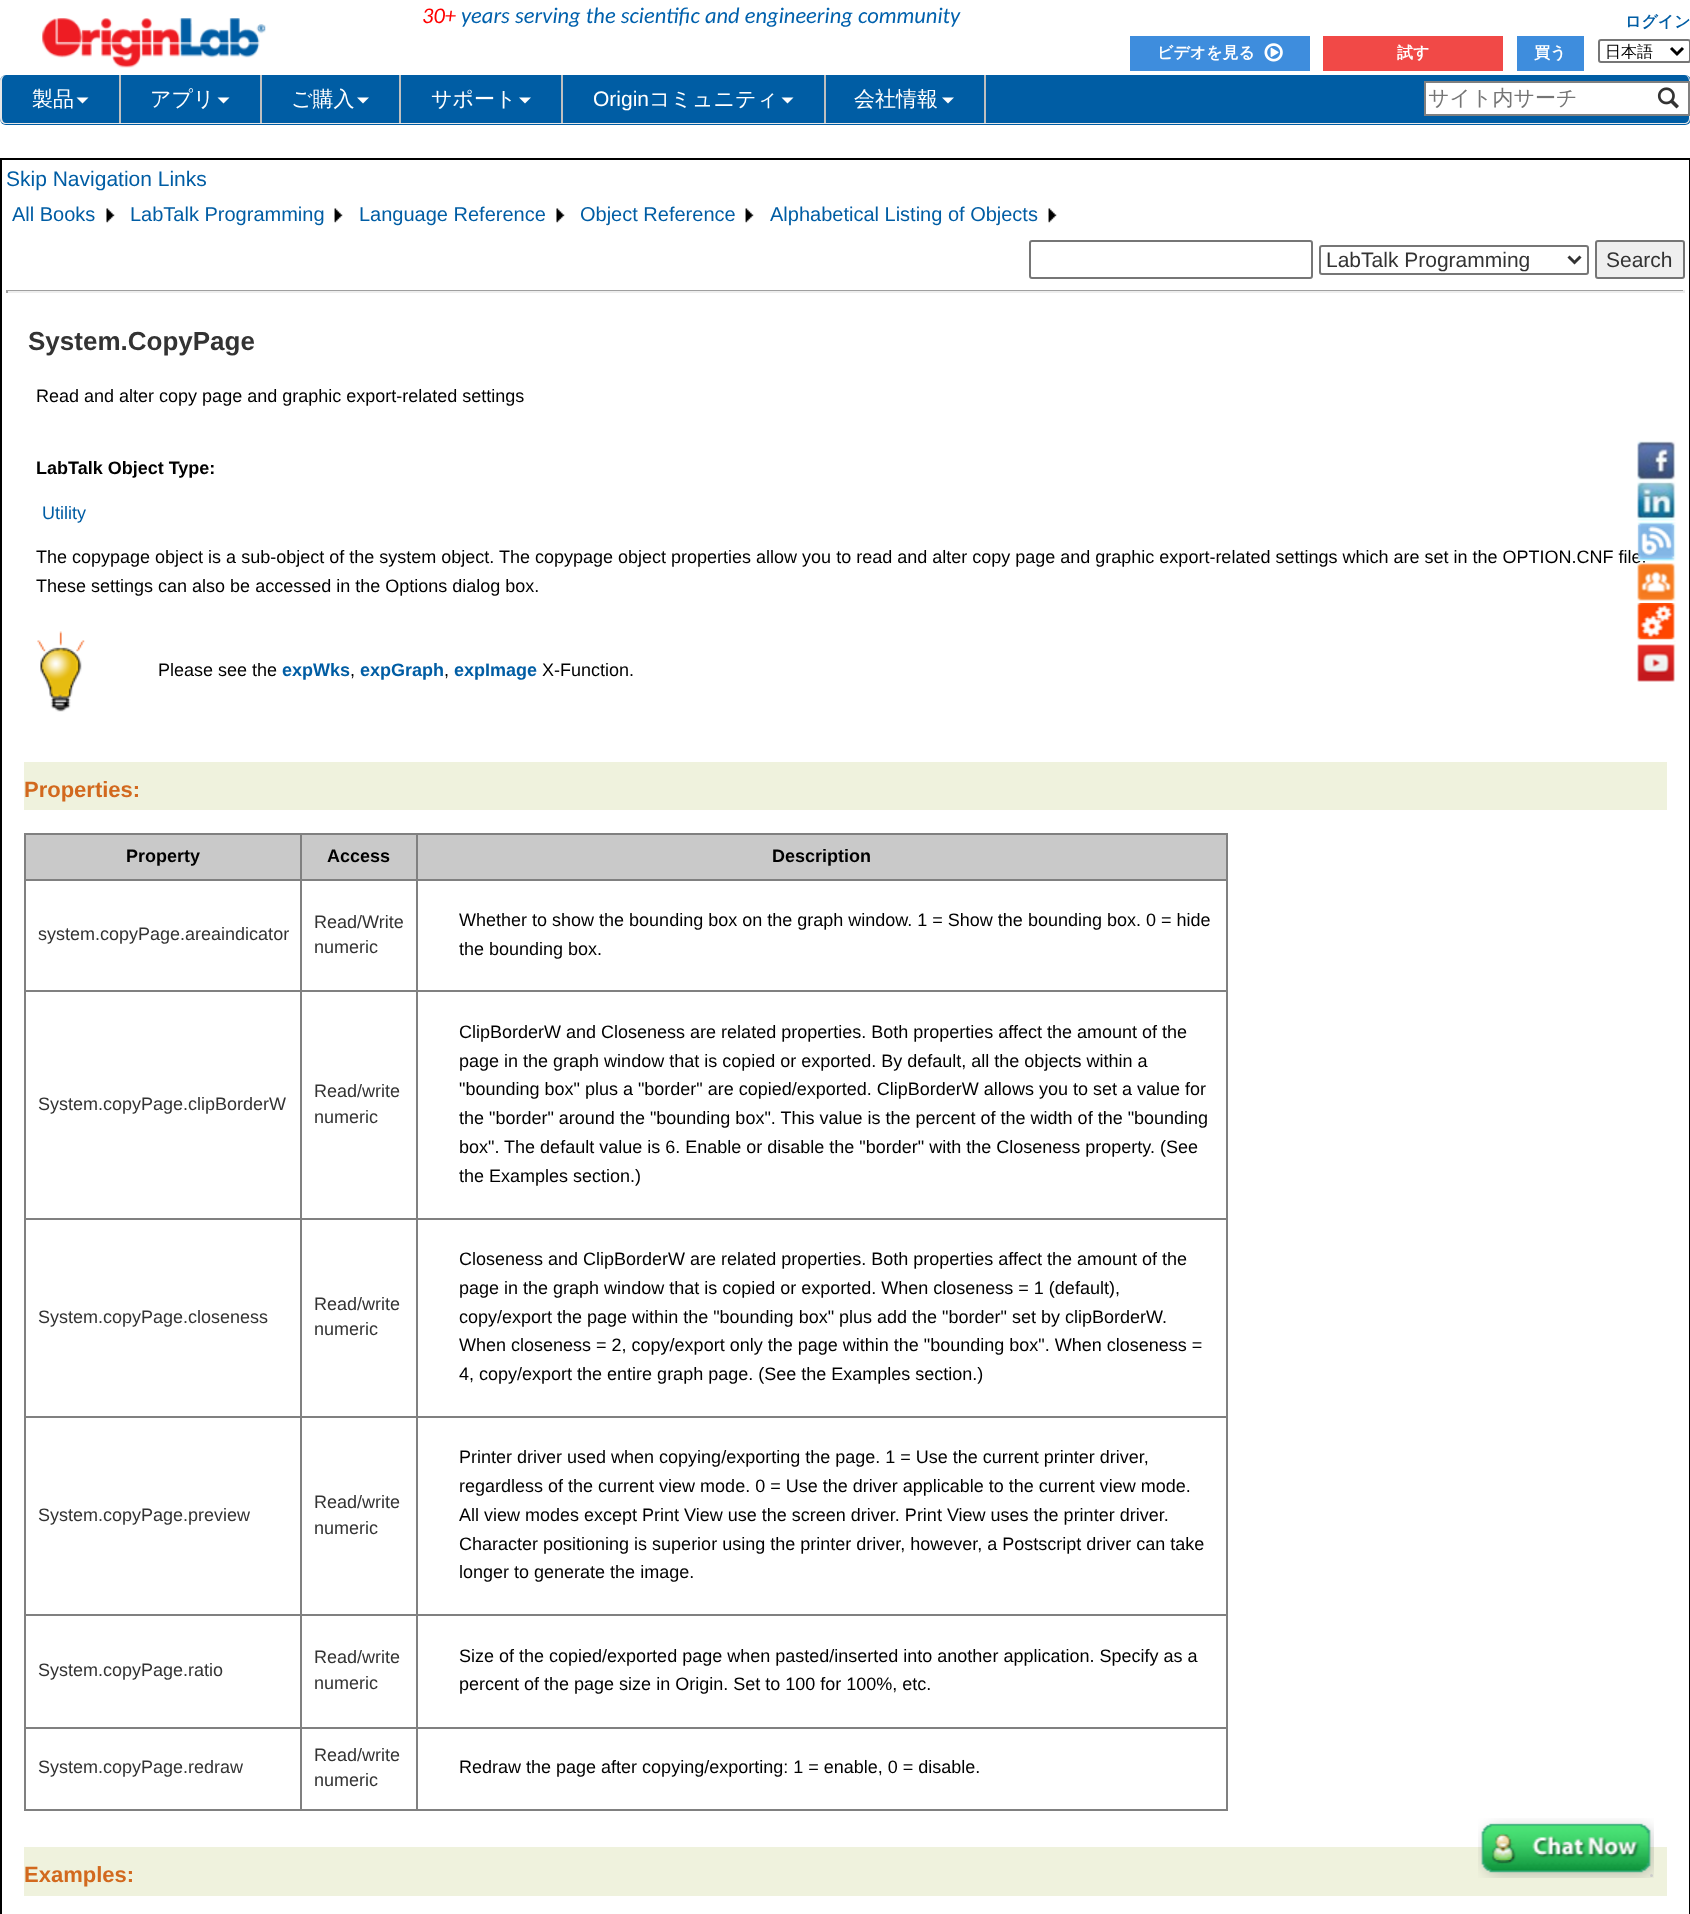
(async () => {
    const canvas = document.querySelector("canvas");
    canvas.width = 1690;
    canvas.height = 1914;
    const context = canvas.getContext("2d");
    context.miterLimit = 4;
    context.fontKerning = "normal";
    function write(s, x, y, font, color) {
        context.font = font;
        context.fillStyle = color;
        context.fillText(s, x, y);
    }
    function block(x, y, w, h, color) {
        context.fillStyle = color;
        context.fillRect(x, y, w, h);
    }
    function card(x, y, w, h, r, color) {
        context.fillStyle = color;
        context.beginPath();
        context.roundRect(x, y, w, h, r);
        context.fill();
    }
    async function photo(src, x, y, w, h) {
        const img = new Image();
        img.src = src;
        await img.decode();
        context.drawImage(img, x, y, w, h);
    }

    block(0, 0, 1690, 1914, "rgb(255, 255, 255)");
    await photo("media/1.png", 42, 18, 224, 50);
    write("30+", 422, 23, "italic 22.5px Carlito", "rgb(255, 0, 0)");
    write("years serving the scientific and engineering community", 461, 23, "italic 22.5px Carlito", "rgb(0, 97, 173)");
    write("ログイン", 1625, 27, "bold 16px WenQuanYi Zen Hei", "rgb(0, 93, 164)");
    block(1130, 36, 180, 35, "rgb(62, 141, 221)");
    write("ビデオを見る", 1157, 58, "bold 16px WenQuanYi Zen Hei", "rgb(255, 255, 255)");
    await photo("media/2.png", 1264, 43, 19, 19);
    block(1323, 36, 180, 35, "rgb(241, 73, 71)");
    write("試す", 1397, 58, "bold 16px WenQuanYi Zen Hei", "rgb(255, 255, 255)");
    block(1517, 36, 67, 35, "rgb(62, 141, 221)");
    write("買う", 1534, 58, "bold 16px WenQuanYi Zen Hei", "rgb(255, 255, 255)");
    context.beginPath();
    context.roundRect(1599, 40, 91, 22, 2);
    context.strokeStyle = "rgb(118, 118, 118)";
    context.lineWidth = 2;
    context.stroke();
    context.beginPath();
    context.moveTo(1671, 48);
    context.lineTo(1677, 54);
    context.lineTo(1683, 48);
    context.strokeStyle = "rgb(0, 0, 0)";
    context.lineWidth = 3;
    context.stroke();
    write("日本語", 1605, 57, "500 16px WenQuanYi Zen Hei", "rgb(0, 0, 0)");
    card(0, 75, 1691, 50, 6, "rgb(0, 93, 164)");
    context.fillStyle = "rgb(231, 231, 231)";
    context.beginPath();
    context.moveTo(6, 75);
    context.lineTo(1684, 75);
    context.bezierCurveTo(1688, 75, 1690, 78, 1690, 81);
    context.lineTo(1690, 118);
    context.bezierCurveTo(1690, 122, 1688, 124, 1684, 124);
    context.lineTo(6, 124);
    context.bezierCurveTo(3, 124, 0, 122, 0, 118);
    context.lineTo(0, 81);
    context.bezierCurveTo(0, 78, 3, 75, 6, 75);
    context.closePath();
    context.moveTo(6, 75);
    context.lineTo(1684, 75);
    context.bezierCurveTo(1687, 75, 1689, 78, 1689, 81);
    context.lineTo(1689, 118);
    context.bezierCurveTo(1689, 121, 1687, 123, 1684, 123);
    context.lineTo(6, 123);
    context.bezierCurveTo(4, 123, 2, 121, 2, 118);
    context.lineTo(2, 81);
    context.bezierCurveTo(2, 78, 4, 75, 6, 75);
    context.closePath();
    context.fill("evenodd");
    block(119, 75, 2, 48, "rgb(191, 191, 191)");
    write("製品", 32, 106, "500 21px WenQuanYi Zen Hei", "rgb(255, 255, 255)");
    context.beginPath();
    context.moveTo(76.5, 97.5);
    context.lineTo(88.5, 97.5);
    context.lineTo(82.5, 103.5);
    context.closePath();
    context.fill();
    block(260, 75, 2, 48, "rgb(191, 191, 191)");
    write("アプリ", 150, 106, "500 21px WenQuanYi Zen Hei", "rgb(255, 255, 255)");
    context.beginPath();
    context.moveTo(217.5, 97.5);
    context.lineTo(229.5, 97.5);
    context.lineTo(223.5, 103.5);
    context.closePath();
    context.fill();
    block(399, 75, 2, 48, "rgb(191, 191, 191)");
    write("ご購入", 291, 106, "500 21px WenQuanYi Zen Hei", "rgb(255, 255, 255)");
    context.beginPath();
    context.moveTo(357, 97.5);
    context.lineTo(369, 97.5);
    context.lineTo(363, 103.5);
    context.closePath();
    context.fill();
    block(561, 75, 2, 48, "rgb(191, 191, 191)");
    write("サポート", 431, 106, "500 21px WenQuanYi Zen Hei", "rgb(255, 255, 255)");
    context.beginPath();
    context.moveTo(519, 97.5);
    context.lineTo(531, 97.5);
    context.lineTo(525, 103.5);
    context.closePath();
    context.fill();
    block(824, 75, 2, 48, "rgb(191, 191, 191)");
    write("Origin", 593, 106, "21px Liberation Sans", "rgb(255, 255, 255)");
    write("コミュニティ", 649, 106, "500 21px WenQuanYi Zen Hei", "rgb(255, 255, 255)");
    context.beginPath();
    context.moveTo(781.5, 97.5);
    context.lineTo(793.5, 97.5);
    context.lineTo(787.5, 103.5);
    context.closePath();
    context.fill();
    block(984, 75, 2, 48, "rgb(191, 191, 191)");
    write("会社情報", 854, 106, "500 21px WenQuanYi Zen Hei", "rgb(255, 255, 255)");
    context.beginPath();
    context.moveTo(942, 97.5);
    context.lineTo(954, 97.5);
    context.lineTo(948, 103.5);
    context.closePath();
    context.fill();
    block(1426, 83, 262, 31, "rgb(255, 255, 255)");
    block(1424, 81, 265, 2, "rgb(128, 128, 128)");
    block(1424, 114, 225, 2, "rgb(128, 128, 128)");
    block(1424, 81, 2, 35, "rgb(128, 128, 128)");
    write("サイト内サーチ", 1428, 105, "500 21px WenQuanYi Zen Hei", "rgb(117, 117, 117)");
    block(1688, 81, 2, 35, "rgb(128, 128, 128)");
    block(1649, 114, 40, 2, "rgb(128, 128, 128)");
    await photo("media/3.png", 1657, 87, 22, 22);
    context.lineWidth = 2;
    context.strokeRect(1, 159, 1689, 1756);
    await photo("media/4.png", 1637, 440, 39, 41);
    await photo("media/5.png", 1637, 481, 39, 40);
    write("The copypage object is a sub-object of the system object. The copypage object properties allow you to read and alter copy page and graphic export-related settings which are set in the OPTION.CNF file.", 36, 563, "18px Liberation Sans", "rgb(0, 0, 0)");
    await photo("media/6.png", 1637, 521, 39, 40);
    await photo("media/7.png", 1637, 562, 39, 40);
    await photo("media/8.png", 1637, 603, 39, 39);
    await photo("media/9.png", 1637, 643, 39, 39);
    write("Skip Navigation Links", 6, 186, "21px Liberation Sans", "rgb(0, 93, 164)");
    write("All Books", 12, 221, "20px Liberation Sans", "rgb(0, 93, 164)");
    await photo("media/10.png", 106, 208, 9, 15);
    write("LabTalk Programming", 130, 221, "20px Liberation Sans", "rgb(0, 93, 164)");
    await photo("media/11.png", 334, 208, 9, 15);
    write("Language Reference", 359, 221, "20px Liberation Sans", "rgb(0, 93, 164)");
    await photo("media/10.png", 556, 208, 9, 15);
    write("Object Reference", 580, 221, "20px Liberation Sans", "rgb(0, 93, 164)");
    await photo("media/11.png", 745, 208, 9, 15);
    write("Alphabetical Listing of Objects", 770, 221, "20px Liberation Sans", "rgb(0, 93, 164)");
    await photo("media/11.png", 1048, 208, 9, 15);
    context.beginPath();
    context.roundRect(1030, 241, 282, 37, 2);
    context.strokeStyle = "rgb(118, 118, 118)";
    context.stroke();
    context.beginPath();
    context.roundRect(1320, 246, 268, 28, 2);
    context.stroke();
    context.beginPath();
    context.moveTo(1568.5, 256.5);
    context.lineTo(1574.5, 262.5);
    context.lineTo(1580.5, 256.5);
    context.strokeStyle = "rgb(51, 51, 51)";
    context.lineWidth = 3;
    context.stroke();
    write("LabTalk Programming", 1326, 267, "21px Liberation Sans", "rgb(51, 51, 51)");
    context.fillStyle = "rgb(239, 239, 239)";
    context.beginPath();
    context.roundRect(1596, 241, 88, 37, 2);
    context.fill();
    context.strokeStyle = "rgb(118, 118, 118)";
    context.lineWidth = 2;
    context.stroke();
    write("Search", 1606, 267, "21px Liberation Sans", "rgb(51, 51, 51)");
    block(6, 290, 1679, 1, "rgb(159, 159, 159)");
    block(1683, 290, 2, 3, "rgb(238, 238, 238)");
    block(6, 291, 1679, 2, "rgb(238, 238, 238)");
    block(6, 290, 2, 3, "rgb(159, 159, 159)");
    write("System.CopyPage", 28, 350, "bold 26px Liberation Sans", "rgb(51, 51, 51)");
    write("Read and alter copy page and graphic export-related settings", 36, 402, "18px Liberation Sans", "rgb(0, 0, 0)");
    write("LabTalk Object Type:", 36, 474, "bold 18px Liberation Sans", "rgb(0, 0, 0)");
    write("Utility", 42, 519, "18px Liberation Sans", "rgb(0, 93, 164)");
    write("These settings can also be accessed in the Options dialog box.", 36, 592, "18px Liberation Sans", "rgb(0, 0, 0)");
    await photo("media/12.png", 37, 631, 48, 81);
    write("Please see the", 158, 676, "18px Liberation Sans", "rgb(0, 0, 0)");
    write("expWks", 282, 676, "bold 18px Liberation Sans", "rgb(0, 93, 164)");
    write(",", 350, 676, "18px Liberation Sans", "rgb(0, 0, 0)");
    write("expGraph", 360, 676, "bold 18px Liberation Sans", "rgb(0, 93, 164)");
    write(",", 444, 676, "18px Liberation Sans", "rgb(0, 0, 0)");
    write("expImage", 454, 676, "bold 18px Liberation Sans", "rgb(0, 93, 164)");
    write("X-Function.", 542, 676, "18px Liberation Sans", "rgb(0, 0, 0)");
    block(24, 762, 1643, 48, "rgb(239, 242, 221)");
    write("Properties:", 24, 797, "bold 22px Liberation Sans", "rgb(210, 105, 30)");
    block(24, 833, 1203, 2, "rgb(128, 128, 128)");
    block(1226, 833, 2, 978, "rgb(128, 128, 128)");
    block(24, 1809, 1203, 2, "rgb(128, 128, 128)");
    block(24, 833, 2, 978, "rgb(128, 128, 128)");
    block(26, 835, 274, 44, "rgb(201, 201, 201)");
    write("Property", 126, 862, "bold 18px Liberation Sans", "rgb(0, 0, 0)");
    block(302, 835, 114, 44, "rgb(201, 201, 201)");
    block(416, 879, 811, 2, "rgb(128, 128, 128)");
    block(416, 990, 811, 2, "rgb(128, 128, 128)");
    block(416, 1218, 811, 2, "rgb(128, 128, 128)");
    block(416, 1416, 811, 2, "rgb(128, 128, 128)");
    block(416, 1614, 811, 2, "rgb(128, 128, 128)");
    block(416, 1727, 811, 2, "rgb(128, 128, 128)");
    block(416, 1727, 2, 84, "rgb(128, 128, 128)");
    block(300, 1727, 117, 2, "rgb(128, 128, 128)");
    block(416, 1614, 2, 114, "rgb(128, 128, 128)");
    block(300, 1614, 117, 2, "rgb(128, 128, 128)");
    block(416, 1416, 2, 200, "rgb(128, 128, 128)");
    block(300, 1416, 117, 2, "rgb(128, 128, 128)");
    block(416, 1218, 2, 200, "rgb(128, 128, 128)");
    block(300, 1218, 117, 2, "rgb(128, 128, 128)");
    block(416, 990, 2, 230, "rgb(128, 128, 128)");
    block(300, 990, 117, 2, "rgb(128, 128, 128)");
    block(416, 879, 2, 113, "rgb(128, 128, 128)");
    block(300, 879, 117, 2, "rgb(128, 128, 128)");
    block(300, 1727, 2, 84, "rgb(128, 128, 128)");
    block(24, 1727, 278, 2, "rgb(128, 128, 128)");
    block(300, 1614, 2, 114, "rgb(128, 128, 128)");
    block(24, 1614, 278, 2, "rgb(128, 128, 128)");
    block(300, 1416, 2, 200, "rgb(128, 128, 128)");
    block(24, 1416, 278, 2, "rgb(128, 128, 128)");
    block(300, 1218, 2, 200, "rgb(128, 128, 128)");
    block(24, 1218, 278, 2, "rgb(128, 128, 128)");
    block(300, 990, 2, 230, "rgb(128, 128, 128)");
    block(24, 990, 278, 2, "rgb(128, 128, 128)");
    block(300, 879, 2, 113, "rgb(128, 128, 128)");
    block(24, 879, 278, 2, "rgb(128, 128, 128)");
    block(300, 833, 2, 48, "rgb(128, 128, 128)");
    write("Access", 327, 862, "bold 18px Liberation Sans", "rgb(0, 0, 0)");
    block(418, 835, 808, 44, "rgb(201, 201, 201)");
    block(416, 833, 2, 48, "rgb(128, 128, 128)");
    write("Description", 772, 862, "bold 18px Liberation Sans", "rgb(0, 0, 0)");
    write("system.copyPage.areaindicator", 38, 940, "18px Liberation Sans", "rgb(51, 51, 51)");
    write("Read/Write", 314, 928, "18px Liberation Sans", "rgb(51, 51, 51)");
    write("numeric", 314, 953, "18px Liberation Sans", "rgb(51, 51, 51)");
    write("Whether to show the bounding box on the graph window. 1 = Show the bounding box. 0 = hide", 459, 926, "18px Liberation Sans", "rgb(0, 0, 0)");
    write("the bounding box.", 459, 955, "18px Liberation Sans", "rgb(0, 0, 0)");
    write("System.copyPage.clipBorderW", 38, 1110, "18px Liberation Sans", "rgb(51, 51, 51)");
    write("Read/write", 314, 1097, "18px Liberation Sans", "rgb(51, 51, 51)");
    write("numeric", 314, 1123, "18px Liberation Sans", "rgb(51, 51, 51)");
    write("ClipBorderW and Closeness are related properties. Both properties affect the amount of the", 459, 1038, "18px Liberation Sans", "rgb(0, 0, 0)");
    write("page in the graph window that is copied or exported. By default, all the objects within a", 459, 1067, "18px Liberation Sans", "rgb(0, 0, 0)");
    write("\"bounding box\" plus a \"border\" are copied/exported. ClipBorderW allows you to set a value for", 459, 1095, "18px Liberation Sans", "rgb(0, 0, 0)");
    write("the \"border\" around the \"bounding box\". This value is the percent of the width of the \"bounding", 459, 1124, "18px Liberation Sans", "rgb(0, 0, 0)");
    write("box\". The default value is 6. Enable or disable the \"border\" with the Closeness property. (See", 459, 1153, "18px Liberation Sans", "rgb(0, 0, 0)");
    write("the Examples section.)", 459, 1182, "18px Liberation Sans", "rgb(0, 0, 0)");
    write("System.copyPage.closeness", 38, 1323, "18px Liberation Sans", "rgb(51, 51, 51)");
    write("Read/write", 314, 1310, "18px Liberation Sans", "rgb(51, 51, 51)");
    write("numeric", 314, 1335, "18px Liberation Sans", "rgb(51, 51, 51)");
    write("Closeness and ClipBorderW are related properties. Both properties affect the amount of the", 459, 1265, "18px Liberation Sans", "rgb(0, 0, 0)");
    write("page in the graph window that is copied or exported. When closeness = 1 (default),", 459, 1294, "18px Liberation Sans", "rgb(0, 0, 0)");
    write("copy/export the page within the \"bounding box\" plus add the \"border\" set by clipBorderW.", 459, 1323, "18px Liberation Sans", "rgb(0, 0, 0)");
    write("When closeness = 2, copy/export only the page within the \"bounding box\". When closeness =", 459, 1351, "18px Liberation Sans", "rgb(0, 0, 0)");
    write("4, copy/export the entire graph page. (See the Examples section.)", 459, 1380, "18px Liberation Sans", "rgb(0, 0, 0)");
    write("System.copyPage.preview", 38, 1521, "18px Liberation Sans", "rgb(51, 51, 51)");
    write("Read/write", 314, 1508, "18px Liberation Sans", "rgb(51, 51, 51)");
    write("numeric", 314, 1534, "18px Liberation Sans", "rgb(51, 51, 51)");
    write("Printer driver used when copying/exporting the page. 1 = Use the current printer driver,", 459, 1463, "18px Liberation Sans", "rgb(0, 0, 0)");
    write("regardless of the current view mode. 0 = Use the driver applicable to the current view mode.", 459, 1492, "18px Liberation Sans", "rgb(0, 0, 0)");
    write("All view modes except Print View use the screen driver. Print View uses the printer driver.", 459, 1521, "18px Liberation Sans", "rgb(0, 0, 0)");
    write("Character positioning is superior using the printer driver, however, a Postscript driver can take", 459, 1550, "18px Liberation Sans", "rgb(0, 0, 0)");
    write("longer to generate the image.", 459, 1578, "18px Liberation Sans", "rgb(0, 0, 0)");
    write("System.copyPage.ratio", 38, 1676, "18px Liberation Sans", "rgb(51, 51, 51)");
    write("Read/write", 314, 1663, "18px Liberation Sans", "rgb(51, 51, 51)");
    write("numeric", 314, 1689, "18px Liberation Sans", "rgb(51, 51, 51)");
    write("Size of the copied/exported page when pasted/inserted into another application. Specify as a", 459, 1662, "18px Liberation Sans", "rgb(0, 0, 0)");
    write("percent of the page size in Origin. Set to 100 for 100%, etc.", 459, 1690, "18px Liberation Sans", "rgb(0, 0, 0)");
    write("System.copyPage.redraw", 38, 1773, "18px Liberation Sans", "rgb(51, 51, 51)");
    write("Read/write", 314, 1761, "18px Liberation Sans", "rgb(51, 51, 51)");
    write("numeric", 314, 1786, "18px Liberation Sans", "rgb(51, 51, 51)");
    write("Redraw the page after copying/exporting: 1 = enable, 0 = disable.", 459, 1773, "18px Liberation Sans", "rgb(0, 0, 0)");
    block(24, 1847, 1643, 49, "rgb(239, 242, 221)");
    write("Examples:", 24, 1882, "bold 22px Liberation Sans", "rgb(210, 105, 30)");
    await photo("media/13.png", 1478, 1818, 176, 60);
    context.fillStyle = "rgb(204, 204, 204)";
    context.beginPath();
    context.arc(1651.5, 1875.5, 1.5, 0, Math.PI * 2);
    context.fill();
})();
